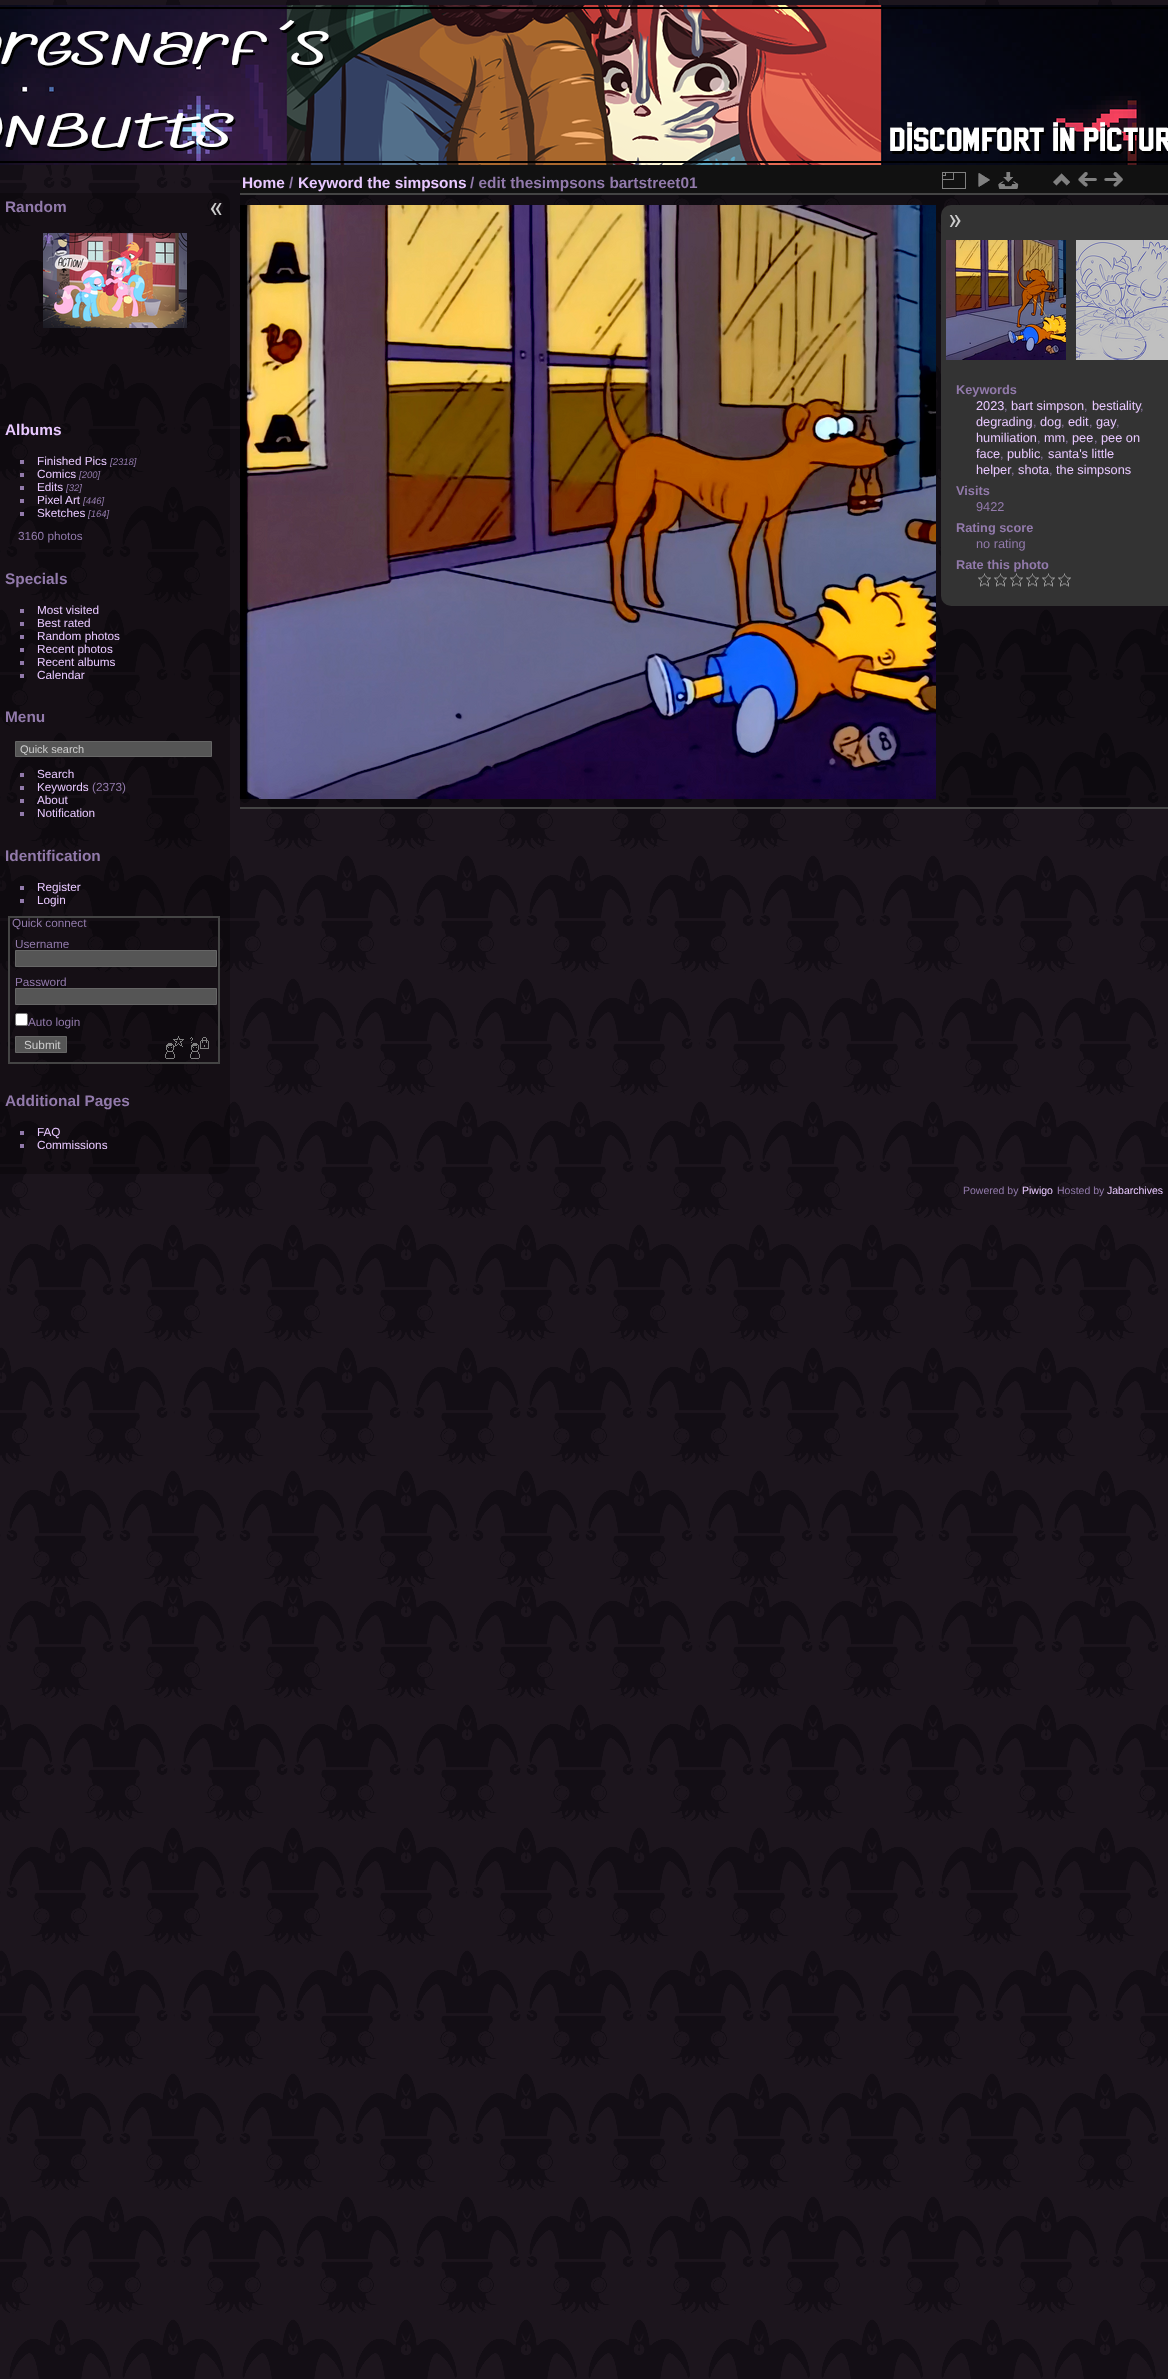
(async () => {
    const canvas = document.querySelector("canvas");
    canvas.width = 1168;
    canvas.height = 2379;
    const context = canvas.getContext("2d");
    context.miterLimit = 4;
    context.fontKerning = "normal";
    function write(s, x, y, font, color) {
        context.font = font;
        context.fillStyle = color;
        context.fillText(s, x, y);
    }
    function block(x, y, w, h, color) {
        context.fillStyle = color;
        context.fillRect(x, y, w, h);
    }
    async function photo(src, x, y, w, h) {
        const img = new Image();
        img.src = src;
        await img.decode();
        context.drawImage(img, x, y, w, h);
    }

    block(0, 0, 1168, 2379, "rgb(255, 255, 255)");
    await photo("media/1.png", 0, 0, 1168, 2379);
    await photo("media/2.png", 0, 5, 1168, 160);
    context.fillStyle = "rgba(0, 0, 0, 0.25)";
    context.beginPath();
    context.roundRect(0, 193, 230, 981, [0, 10, 10, 0]);
    context.fill();
    write("Random", 5, 212, "bold 15.4px Liberation Sans", "rgb(146, 122, 171)");
    await photo("media/3.png", 43, 233, 144, 95);
    write("Albums", 5, 435, "bold 15.4px Liberation Sans", "rgb(232, 200, 255)");
    block(20, 460, 4, 4, "rgb(146, 122, 171)");
    write("Finished Pics", 37, 465, "11.75px Liberation Sans", "rgb(232, 200, 255)");
    write("[2318]", 110, 465, "italic 9.5px Liberation Sans", "rgb(146, 122, 171)");
    block(20, 473, 4, 4, "rgb(146, 122, 171)");
    write("Comics", 37, 478, "11.75px Liberation Sans", "rgb(232, 200, 255)");
    write("[200]", 79, 478, "italic 9.5px Liberation Sans", "rgb(146, 122, 171)");
    block(20, 486, 4, 4, "rgb(146, 122, 171)");
    write("Edits", 37, 491, "11.75px Liberation Sans", "rgb(232, 200, 255)");
    write("[32]", 66, 491, "italic 9.5px Liberation Sans", "rgb(146, 122, 171)");
    block(20, 499, 4, 4, "rgb(146, 122, 171)");
    write("Pixel Art", 37, 504, "11.75px Liberation Sans", "rgb(232, 200, 255)");
    write("[446]", 83, 504, "italic 9.5px Liberation Sans", "rgb(146, 122, 171)");
    block(20, 512, 4, 4, "rgb(146, 122, 171)");
    write("Sketches", 37, 517, "11.75px Liberation Sans", "rgb(232, 200, 255)");
    write("[164]", 88, 517, "italic 9.5px Liberation Sans", "rgb(146, 122, 171)");
    write("3160 photos", 18, 540, "11.75px Liberation Sans", "rgb(146, 122, 171)");
    write("Specials", 5, 584, "bold 15.4px Liberation Sans", "rgb(146, 122, 171)");
    block(20, 609, 4, 4, "rgb(146, 122, 171)");
    write("Most visited", 37, 614, "11.75px Liberation Sans", "rgb(232, 200, 255)");
    block(20, 622, 4, 4, "rgb(146, 122, 171)");
    write("Best rated", 37, 627, "11.75px Liberation Sans", "rgb(232, 200, 255)");
    block(20, 635, 4, 4, "rgb(146, 122, 171)");
    write("Random photos", 37, 640, "11.75px Liberation Sans", "rgb(232, 200, 255)");
    block(20, 648, 4, 4, "rgb(146, 122, 171)");
    write("Recent photos", 37, 653, "11.75px Liberation Sans", "rgb(232, 200, 255)");
    block(20, 661, 4, 4, "rgb(146, 122, 171)");
    write("Recent albums", 37, 666, "11.75px Liberation Sans", "rgb(232, 200, 255)");
    block(20, 674, 4, 4, "rgb(146, 122, 171)");
    write("Calendar", 37, 679, "11.75px Liberation Sans", "rgb(232, 200, 255)");
    write("Menu", 5, 722, "bold 15.4px Liberation Sans", "rgb(146, 122, 171)");
    context.fillStyle = "rgb(85, 85, 85)";
    context.beginPath();
    context.rect(15.5, 741.5, 196, 15);
    context.fill();
    context.strokeStyle = "rgb(102, 102, 102)";
    context.stroke();
    write("Quick search", 20, 753, "11px Liberation Sans", "rgb(204, 204, 204)");
    block(20, 773, 4, 4, "rgb(146, 122, 171)");
    write("Search", 37, 778, "11.75px Liberation Sans", "rgb(232, 200, 255)");
    block(20, 786, 4, 4, "rgb(146, 122, 171)");
    write("Keywords", 37, 791, "11.75px Liberation Sans", "rgb(232, 200, 255)");
    write("(2373)", 92, 791, "11.75px Liberation Sans", "rgb(146, 122, 171)");
    block(20, 799, 4, 4, "rgb(146, 122, 171)");
    write("About", 37, 804, "11.75px Liberation Sans", "rgb(232, 200, 255)");
    block(20, 812, 4, 4, "rgb(146, 122, 171)");
    write("Notification", 37, 817, "11.75px Liberation Sans", "rgb(232, 200, 255)");
    write("Identification", 5, 861, "bold 15.4px Liberation Sans", "rgb(146, 122, 171)");
    block(20, 886, 4, 4, "rgb(146, 122, 171)");
    write("Register", 37, 891, "11.75px Liberation Sans", "rgb(232, 200, 255)");
    block(20, 899, 4, 4, "rgb(146, 122, 171)");
    write("Login", 37, 904, "11.75px Liberation Sans", "rgb(232, 200, 255)");
    context.strokeStyle = "rgb(68, 68, 68)";
    context.lineWidth = 2;
    context.strokeRect(9, 917, 210, 146);
    write("Quick connect", 12, 927, "11.75px Liberation Sans", "rgb(146, 122, 171)");
    write("Username", 15, 948, "11.75px Liberation Sans", "rgb(146, 122, 171)");
    context.fillStyle = "rgb(85, 85, 85)";
    context.beginPath();
    context.rect(15.5, 950.5, 201, 16);
    context.fill();
    context.strokeStyle = "rgb(102, 102, 102)";
    context.lineWidth = 1;
    context.stroke();
    write("Password", 15, 986, "11.75px Liberation Sans", "rgb(146, 122, 171)");
    context.fillStyle = "rgb(85, 85, 85)";
    context.beginPath();
    context.rect(15.5, 988.5, 201, 16);
    context.fill();
    context.stroke();
    context.fillStyle = "rgb(255, 255, 255)";
    context.beginPath();
    context.roundRect(15.5, 1013.5, 12, 12, 1.5);
    context.fill();
    context.strokeStyle = "rgb(118, 118, 118)";
    context.stroke();
    write("Auto login", 28, 1026, "11.75px Liberation Sans", "rgb(146, 122, 171)");
    context.fillStyle = "rgb(85, 85, 85)";
    context.beginPath();
    context.rect(15.5, 1036.5, 51, 16);
    context.fill();
    context.strokeStyle = "rgb(102, 102, 102)";
    context.stroke();
    write("Submit", 24, 1049, "11.75px Liberation Sans", "rgb(204, 204, 204)");
    await photo("media/4.png", 165, 1036, 19, 23);
    await photo("media/5.png", 190, 1037, 19, 22);
    write("Additional Pages", 5, 1106, "bold 15.4px Liberation Sans", "rgb(146, 122, 171)");
    block(20, 1131, 4, 4, "rgb(146, 122, 171)");
    write("FAQ", 37, 1136, "11.75px Liberation Sans", "rgb(232, 200, 255)");
    block(20, 1144, 4, 4, "rgb(146, 122, 171)");
    write("Commissions", 37, 1149, "11.75px Liberation Sans", "rgb(232, 200, 255)");
    await photo("media/6.png", 210, 203, 12, 12);
    block(240, 195, 928, 612, "rgba(0, 0, 0, 0.27)");
    block(240, 807, 928, 2, "rgb(68, 68, 68)");
    block(240, 165, 928, 28, "rgb(17, 17, 17)");
    block(240, 193, 928, 2, "rgb(68, 68, 68)");
    write("Home", 242, 188, "bold 15.4px Liberation Sans", "rgb(232, 200, 255)");
    write("/", 289, 188, "bold 15.4px Liberation Sans", "rgb(146, 122, 171)");
    write("Keyword the simpsons", 298, 188, "bold 15.4px Liberation Sans", "rgb(232, 200, 255)");
    write("/ edit thesimpsons bartstreet01", 470, 188, "bold 15.4px Liberation Sans", "rgb(146, 122, 171)");
    await photo("media/7.png", 942, 172, 24, 17);
    await photo("media/8.png", 978, 173, 12, 14);
    await photo("media/9.png", 998, 172, 21, 17);
    await photo("media/10.png", 1053, 173, 17, 13);
    await photo("media/11.png", 1078, 172, 19, 15);
    await photo("media/12.png", 1104, 172, 19, 15);
    await photo("media/13.png", 240, 205, 696, 594);
    context.fillStyle = "rgb(51, 51, 51)";
    context.beginPath();
    context.roundRect(941, 205, 227, 401, [10, 0, 0, 10]);
    context.fill();
    await photo("media/14.png", 949, 215, 12, 12);
    await photo("media/15.png", 946, 240, 120, 120);
    await photo("media/16.png", 1076, 240, 92, 120);
    write("Keywords", 956, 394, "bold 12.75px Liberation Sans", "rgb(146, 122, 171)");
    write("2023", 976, 410, "12.75px Liberation Sans", "rgb(232, 200, 255)");
    write(",", 1004, 410, "12.75px Liberation Sans", "rgb(146, 122, 171)");
    write("bart simpson", 1011, 410, "12.75px Liberation Sans", "rgb(232, 200, 255)");
    write(",", 1084, 410, "12.75px Liberation Sans", "rgb(146, 122, 171)");
    write("bestiality", 1092, 410, "12.75px Liberation Sans", "rgb(232, 200, 255)");
    write(",", 1140, 410, "12.75px Liberation Sans", "rgb(146, 122, 171)");
    write("degrading", 976, 426, "12.75px Liberation Sans", "rgb(232, 200, 255)");
    write(",", 1033, 426, "12.75px Liberation Sans", "rgb(146, 122, 171)");
    write("dog", 1040, 426, "12.75px Liberation Sans", "rgb(232, 200, 255)");
    write(",", 1061, 426, "12.75px Liberation Sans", "rgb(146, 122, 171)");
    write("edit", 1068, 426, "12.75px Liberation Sans", "rgb(232, 200, 255)");
    write(",", 1089, 426, "12.75px Liberation Sans", "rgb(146, 122, 171)");
    write("gay", 1096, 426, "12.75px Liberation Sans", "rgb(232, 200, 255)");
    write(",", 1116, 426, "12.75px Liberation Sans", "rgb(146, 122, 171)");
    write("humiliation", 976, 442, "12.75px Liberation Sans", "rgb(232, 200, 255)");
    write(",", 1037, 442, "12.75px Liberation Sans", "rgb(146, 122, 171)");
    write("mm", 1044, 442, "12.75px Liberation Sans", "rgb(232, 200, 255)");
    write(",", 1065, 442, "12.75px Liberation Sans", "rgb(146, 122, 171)");
    write("pee", 1072, 442, "12.75px Liberation Sans", "rgb(232, 200, 255)");
    write(",", 1094, 442, "12.75px Liberation Sans", "rgb(146, 122, 171)");
    write("pee on", 1101, 442, "12.75px Liberation Sans", "rgb(232, 200, 255)");
    write("face", 976, 458, "12.75px Liberation Sans", "rgb(232, 200, 255)");
    write(",", 1000, 458, "12.75px Liberation Sans", "rgb(146, 122, 171)");
    write("public", 1007, 458, "12.75px Liberation Sans", "rgb(232, 200, 255)");
    write(",", 1040, 458, "12.75px Liberation Sans", "rgb(146, 122, 171)");
    write("santa's little", 1048, 458, "12.75px Liberation Sans", "rgb(232, 200, 255)");
    write("helper", 976, 474, "12.75px Liberation Sans", "rgb(232, 200, 255)");
    write(",", 1011, 474, "12.75px Liberation Sans", "rgb(146, 122, 171)");
    write("shota", 1018, 474, "12.75px Liberation Sans", "rgb(232, 200, 255)");
    write(",", 1049, 474, "12.75px Liberation Sans", "rgb(146, 122, 171)");
    write("the simpsons", 1056, 474, "12.75px Liberation Sans", "rgb(232, 200, 255)");
    write("Visits", 956, 495, "bold 12.75px Liberation Sans", "rgb(146, 122, 171)");
    write("9422", 976, 511, "12.75px Liberation Sans", "rgb(146, 122, 171)");
    write("Rating score", 956, 532, "bold 12.75px Liberation Sans", "rgb(146, 122, 171)");
    write("no rating", 976, 548, "12.75px Liberation Sans", "rgb(146, 122, 171)");
    write("Rate this photo", 956, 569, "bold 12.75px Liberation Sans", "rgb(146, 122, 171)");
    await photo("media/17.png", 978, 573, 13, 14);
    await photo("media/17.png", 994, 573, 13, 14);
    await photo("media/17.png", 1010, 573, 13, 14);
    await photo("media/17.png", 1026, 573, 13, 14);
    await photo("media/17.png", 1042, 573, 13, 14);
    await photo("media/17.png", 1058, 573, 13, 14);
    write("Powered by", 963, 1194, "10.5px Liberation Sans", "rgb(146, 122, 171)");
    write("Piwigo", 1022, 1194, "10.5px Liberation Sans", "rgb(232, 200, 255)");
    write("Hosted by", 1057, 1194, "10.5px Liberation Sans", "rgb(146, 122, 171)");
    write("Jabarchives", 1107, 1194, "10.5px Liberation Sans", "rgb(232, 200, 255)");
})();
